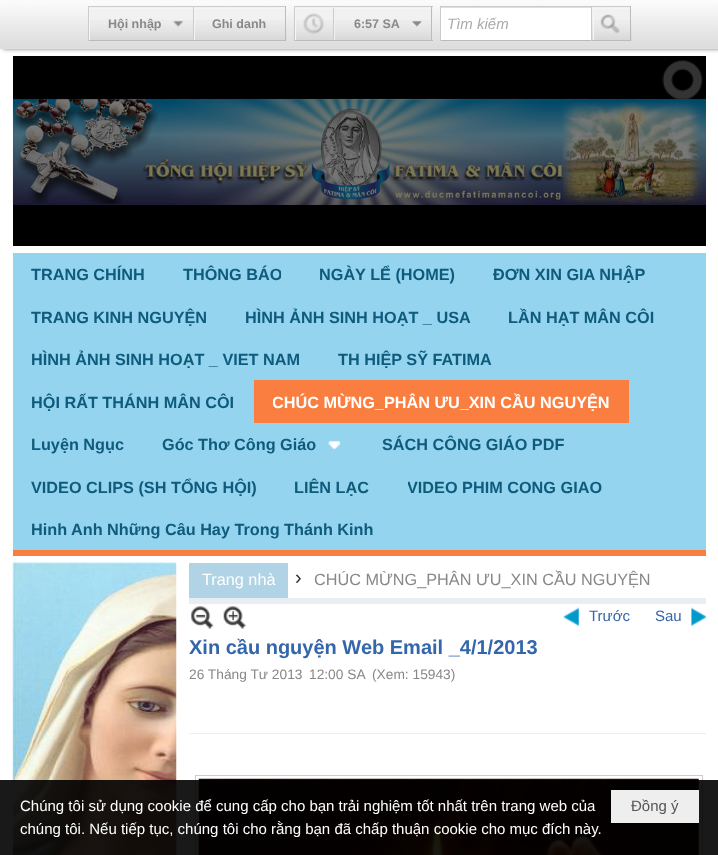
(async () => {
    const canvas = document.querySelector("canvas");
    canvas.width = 718;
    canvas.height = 855;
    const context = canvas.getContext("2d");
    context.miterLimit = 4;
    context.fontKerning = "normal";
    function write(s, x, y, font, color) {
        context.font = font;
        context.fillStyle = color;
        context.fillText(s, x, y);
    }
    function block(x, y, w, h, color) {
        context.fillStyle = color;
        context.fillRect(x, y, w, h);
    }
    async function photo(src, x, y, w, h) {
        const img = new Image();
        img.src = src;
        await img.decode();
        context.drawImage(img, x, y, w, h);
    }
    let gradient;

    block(0, 0, 718, 855, "rgb(255, 255, 255)");
    context.fillStyle = "rgba(0, 0, 0, 0.5)";
    context.filter = "blur(2px)";
    context.beginPath();
    context.rect(3, 0, 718, 49);
    context.fill();
    context.filter = "none";
    gradient = context.createLinearGradient(359, 0, 359, 48);
    gradient.addColorStop(0, "rgb(252, 252, 252)");
    gradient.addColorStop(1, "rgb(220, 220, 220)");
    context.fillStyle = gradient;
    context.fillRect(0, 0, 718, 48);
    block(0, 48, 718, 1, "rgb(224, 224, 224)");
    await photo("media/1.png", 5, 0, 626, 1);
    block(89, 7, 104, 33, "rgb(241, 241, 241)");
    await photo("media/2.png", 90, 20, 103, 20);
    context.save();
    context.beginPath();
    context.rect(89, 8, 104, 32);
    context.clip();
    context.fillStyle = "rgb(245, 245, 245)";
    context.beginPath();
    context.moveTo(-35, -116);
    context.lineTo(316, -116);
    context.lineTo(316, 164);
    context.lineTo(-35, 164);
    context.closePath();
    context.moveTo(90, 9);
    context.lineTo(194, 9);
    context.lineTo(194, 41);
    context.lineTo(90, 41);
    context.closePath();
    context.fill("evenodd");
    context.restore();
    block(88, 6, 198, 1, "rgb(204, 204, 204)");
    block(88, 40, 105, 1, "rgb(187, 187, 187)");
    block(88, 6, 1, 35, "rgb(204, 204, 204)");
    write("Hội nhập", 108, 28, "bold 12.5px Liberation Sans", "rgb(136, 136, 136)");
    await photo("media/3.png", 173, 20, 10, 7);
    block(194, 7, 91, 33, "rgb(241, 241, 241)");
    await photo("media/4.png", 192, 20, 95, 21);
    context.save();
    context.beginPath();
    context.rect(194, 8, 91, 32);
    context.clip();
    context.fillStyle = "rgb(245, 245, 245)";
    context.beginPath();
    context.moveTo(70, -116);
    context.lineTo(409, -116);
    context.lineTo(409, 164);
    context.lineTo(70, 164);
    context.closePath();
    context.moveTo(195, 9);
    context.lineTo(286, 9);
    context.lineTo(286, 41);
    context.lineTo(195, 41);
    context.closePath();
    context.fill("evenodd");
    context.restore();
    block(285, 6, 1, 35, "rgb(187, 187, 187)");
    block(193, 40, 93, 1, "rgb(187, 187, 187)");
    block(193, 6, 1, 35, "rgb(204, 204, 204)");
    write("Ghi danh", 212, 28, "bold 12.5px Liberation Sans", "rgb(136, 136, 136)");
    block(295, 7, 138, 33, "rgb(241, 241, 241)");
    await photo("media/5.png", 293, 20, 140, 21);
    context.save();
    context.beginPath();
    context.rect(295, 8, 136, 32);
    context.clip();
    context.fillStyle = "rgb(245, 245, 245)";
    context.beginPath();
    context.moveTo(171, -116);
    context.lineTo(555, -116);
    context.lineTo(555, 164);
    context.lineTo(171, 164);
    context.closePath();
    context.moveTo(296, 9);
    context.lineTo(432, 9);
    context.lineTo(432, 41);
    context.lineTo(296, 41);
    context.closePath();
    context.fill("evenodd");
    context.restore();
    block(294, 6, 139, 1, "rgb(204, 204, 204)");
    block(431, 6, 1, 35, "rgb(187, 187, 187)");
    block(294, 40, 139, 1, "rgb(187, 187, 187)");
    block(294, 6, 1, 35, "rgb(204, 204, 204)");
    block(334, 8, 1, 32, "rgb(242, 242, 242)");
    await photo("media/6.png", 303, 13, 21, 21);
    block(333, 8, 1, 32, "rgb(204, 204, 204)");
    write("6:57 SA", 354, 28, "bold 12.5px Liberation Sans", "rgb(136, 136, 136)");
    await photo("media/7.png", 412, 21, 10, 6);
    block(441, 7, 150, 1, "rgb(241, 241, 241)");
    await photo("media/8.png", 441, 7, 150, 1);
    block(440, 6, 191, 1, "rgb(204, 204, 204)");
    block(440, 40, 151, 1, "rgb(187, 187, 187)");
    block(440, 6, 1, 35, "rgb(204, 204, 204)");
    block(441, 8, 150, 32, "rgb(255, 255, 255)");
    write("Tìm kiếm", 447, 29, "italic 15px Liberation Sans", "rgb(170, 170, 170)");
    block(592, 7, 38, 33, "rgb(241, 241, 241)");
    await photo("media/9.png", 592, 20, 40, 21);
    context.save();
    context.beginPath();
    context.rect(593, 8, 37, 32);
    context.clip();
    context.fillStyle = "rgb(245, 245, 245)";
    context.beginPath();
    context.moveTo(469, -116);
    context.lineTo(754, -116);
    context.lineTo(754, 164);
    context.lineTo(469, 164);
    context.closePath();
    context.moveTo(594, 9);
    context.lineTo(631, 9);
    context.lineTo(631, 41);
    context.lineTo(594, 41);
    context.closePath();
    context.fill("evenodd");
    context.restore();
    block(630, 6, 1, 35, "rgb(187, 187, 187)");
    block(591, 40, 40, 1, "rgb(187, 187, 187)");
    block(591, 6, 1, 35, "rgb(204, 204, 204)");
    await photo("media/10.png", 600, 14, 20, 20);
    block(13, 56, 693, 190, "rgb(0, 0, 0)");
    await photo("media/12.png", 12, 98, 694, 107);
    await photo("media/11.png", 662, 60, 41, 40);
    block(13, 253, 693, 297, "rgb(148, 212, 239)");
    block(13, 550, 693, 6, "rgb(250, 126, 63)");
    write("TRANG CHÍNH", 31, 280, "bold 16.25px Liberation Sans", "rgb(14, 91, 124)");
    context.save();
    context.beginPath();
    context.rect(183, 260, 98, 28);
    context.clip();
    write("THÔNG BÁO", 183, 280, "bold 16.25px Liberation Sans", "rgb(14, 91, 124)");
    context.restore();
    write("NGÀY LỂ (HOME)", 319, 280, "bold 16.25px Liberation Sans", "rgb(14, 91, 124)");
    write("ĐƠN XIN GIA NHẬP", 493, 280, "bold 16.25px Liberation Sans", "rgb(14, 91, 124)");
    write("TRANG KINH NGUYỆN", 31, 323, "bold 16.25px Liberation Sans", "rgb(14, 91, 124)");
    write("HÌNH ẢNH SINH HOẠT _ USA", 245, 323, "bold 16.25px Liberation Sans", "rgb(14, 91, 124)");
    write("LẦN HẠT MÂN CÔI", 508, 323, "bold 16.25px Liberation Sans", "rgb(14, 91, 124)");
    write("HÌNH ẢNH SINH HOẠT _ VIET NAM", 31, 365, "bold 16.25px Liberation Sans", "rgb(14, 91, 124)");
    write("TH HIỆP SỸ FATIMA", 338, 365, "bold 16.25px Liberation Sans", "rgb(14, 91, 124)");
    write("HỘI RẤT THÁNH MÂN CÔI", 31, 408, "bold 16.25px Liberation Sans", "rgb(14, 91, 124)");
    block(254, 380, 375, 43, "rgb(250, 126, 63)");
    context.save();
    context.beginPath();
    context.rect(273, 388, 337, 27);
    context.clip();
    write("CHÚC MỪNG_PHÂN ƯU_XIN CẦU NGUYỆN", 272, 408, "bold 16.25px Liberation Sans", "rgb(255, 255, 255)");
    context.restore();
    write("Luyện Ngục", 31, 450, "bold 16.25px Liberation Sans", "rgb(14, 91, 124)");
    write("Góc Thơ Công Giáo", 162, 450, "bold 16.25px Liberation Sans", "rgb(14, 91, 124)");
    await photo("media/13.png", 328, 441, 13, 8);
    write("SÁCH CÔNG GIÁO PDF", 382, 450, "bold 16.25px Liberation Sans", "rgb(14, 91, 124)");
    write("VIDEO CLIPS (SH TỔNG HỘI)", 31, 493, "bold 16.25px Liberation Sans", "rgb(14, 91, 124)");
    write("LIÊN LẠC", 294, 493, "bold 16.25px Liberation Sans", "rgb(14, 91, 124)");
    context.save();
    context.beginPath();
    context.rect(408, 473, 195, 27);
    context.clip();
    write("VIDEO PHIM CONG GIAO", 407, 493, "bold 16.25px Liberation Sans", "rgb(14, 91, 124)");
    context.restore();
    write("Hinh Anh Những Câu Hay Trong Thánh Kinh", 31, 535, "bold 16.25px Liberation Sans", "rgb(14, 91, 124)");
    await photo("media/14.png", 12, 562, 165, 293);
    block(189, 598, 517, 6, "rgb(233, 238, 242)");
    block(189, 563, 99, 35, "rgb(176, 212, 230)");
    write("Trang nhà", 202, 585, "16.25px Liberation Sans", "rgb(255, 255, 255)");
    write("›", 295, 584, "20px Liberation Sans", "rgb(51, 51, 51)");
    write("CHÚC MỪNG_PHÂN ƯU_XIN CẦU NGUYỆN", 314, 585, "16.25px Liberation Sans", "rgb(136, 136, 136)");
    block(189, 733, 517, 1, "rgb(238, 238, 238)");
    await photo("media/15.png", 191, 606, 23, 23);
    await photo("media/16.png", 223, 606, 24, 23);
    await photo("media/17.png", 563, 607, 16, 20);
    write("Trước", 589, 621, "15px Liberation Sans", "rgb(52, 102, 171)");
    await photo("media/18.png", 691, 607, 16, 20);
    write("Sau", 655, 621, "15px Liberation Sans", "rgb(52, 102, 171)");
    write("Xin cầu nguyện Web Email _4/1/2013", 189, 654, "bold 20px Liberation Sans", "rgb(52, 102, 171)");
    write("26 Tháng Tư 2013", 189, 679, "13.75px Liberation Sans", "rgb(136, 136, 136)");
    write("12:00 SA", 309, 679, "13.75px Liberation Sans", "rgb(136, 136, 136)");
    write("(Xem: 15943)", 372, 679, "13.75px Liberation Sans", "rgb(136, 136, 136)");
    context.strokeStyle = "rgb(204, 204, 204)";
    context.strokeRect(195.5, 775.5, 507, 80);
    await photo("media/19.png", 198, 778, 501, 77);
    block(0, 780, 718, 75, "rgba(0, 0, 0, 0.9)");
    write("Chúng tôi sử dụng cookie để cung cấp cho bạn trải nghiệm tốt nhất trên trang web của", 20, 811, "15px Liberation Sans", "rgb(255, 255, 255)");
    write("chúng tôi. Nếu tiếp tục, chúng tôi cho rằng bạn đã chấp thuận cookie cho mục đích này.", 20, 834, "15px Liberation Sans", "rgb(255, 255, 255)");
    block(611, 790, 88, 33, "rgb(238, 238, 238)");
    write("Đồng ý", 631, 811, "15px Liberation Sans", "rgb(85, 85, 85)");
})();
